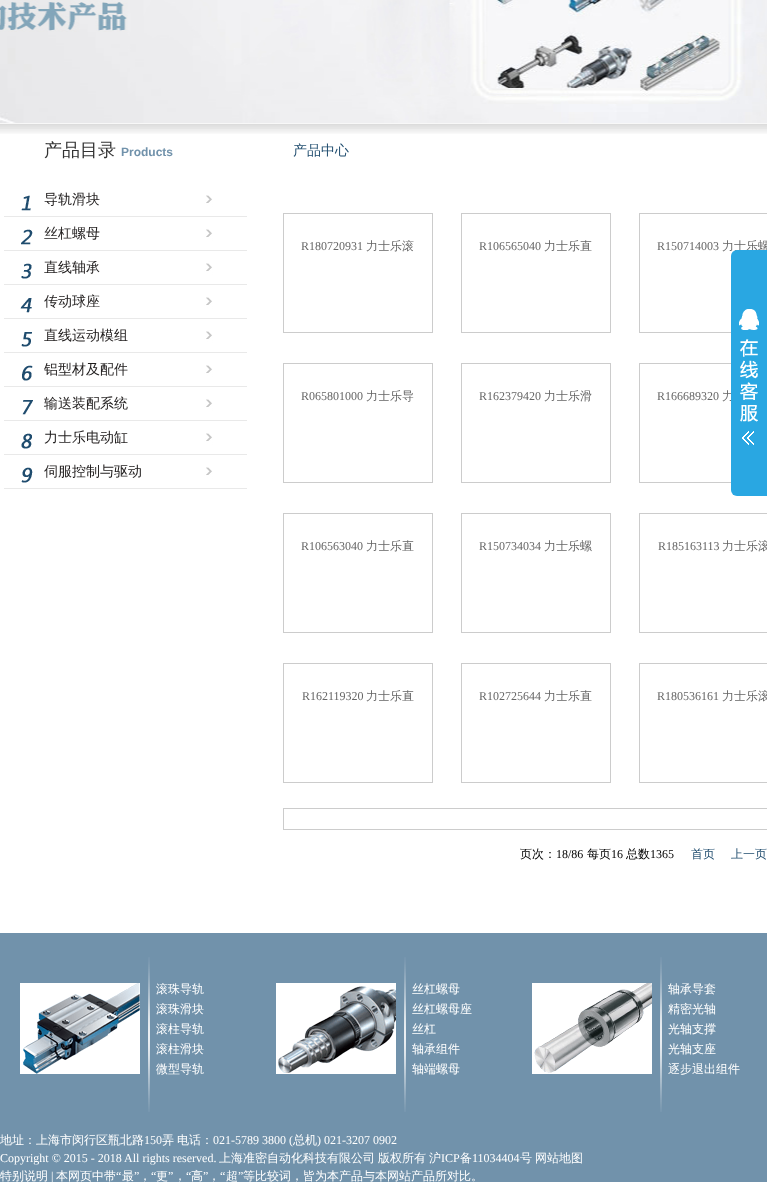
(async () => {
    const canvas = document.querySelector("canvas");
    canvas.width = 767;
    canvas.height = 1182;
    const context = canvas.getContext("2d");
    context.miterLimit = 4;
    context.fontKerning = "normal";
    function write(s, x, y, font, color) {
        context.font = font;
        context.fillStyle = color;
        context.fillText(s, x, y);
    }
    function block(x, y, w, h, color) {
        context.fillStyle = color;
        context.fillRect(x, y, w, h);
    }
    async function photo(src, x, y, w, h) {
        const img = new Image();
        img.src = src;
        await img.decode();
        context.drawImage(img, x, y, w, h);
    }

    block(0, 0, 767, 1182, "rgb(255, 255, 255)");
    await photo("media/1.png", 0, 0, 767, 123);
    await photo("media/2.png", 0, 123, 767, 11);
    write("产品目录", 44, 156, "500 18px WenQuanYi Zen Hei", "rgb(51, 51, 51)");
    write("Products", 121, 156, "bold 12px Liberation Sans", "rgb(113, 146, 171)");
    await photo("media/3.png", 4, 195, 243, 22);
    await photo("media/4.png", 21, 195, 10, 16);
    write("导轨滑块", 44, 204, "500 14px WenQuanYi Zen Hei", "rgb(31, 28, 28)");
    await photo("media/3.png", 4, 229, 243, 22);
    await photo("media/5.png", 21, 229, 12, 16);
    write("丝杠螺母", 44, 238, "500 14px WenQuanYi Zen Hei", "rgb(31, 28, 28)");
    await photo("media/3.png", 4, 263, 243, 22);
    await photo("media/6.png", 21, 263, 11, 16);
    write("直线轴承", 44, 272, "500 14px WenQuanYi Zen Hei", "rgb(31, 28, 28)");
    await photo("media/3.png", 4, 297, 243, 22);
    await photo("media/7.png", 20, 298, 12, 15);
    write("传动球座", 44, 306, "500 14px WenQuanYi Zen Hei", "rgb(31, 28, 28)");
    await photo("media/3.png", 4, 331, 243, 22);
    await photo("media/8.png", 21, 332, 11, 15);
    write("直线运动模组", 44, 340, "500 14px WenQuanYi Zen Hei", "rgb(31, 28, 28)");
    await photo("media/3.png", 4, 365, 243, 22);
    await photo("media/9.png", 22, 365, 11, 16);
    write("铝型材及配件", 44, 374, "500 14px WenQuanYi Zen Hei", "rgb(31, 28, 28)");
    await photo("media/3.png", 4, 399, 243, 22);
    await photo("media/10.png", 22, 400, 11, 15);
    write("输送装配系统", 44, 408, "500 14px WenQuanYi Zen Hei", "rgb(31, 28, 28)");
    await photo("media/3.png", 4, 433, 243, 22);
    await photo("media/11.png", 21, 433, 11, 16);
    write("力士乐电动缸", 44, 442, "500 14px WenQuanYi Zen Hei", "rgb(31, 28, 28)");
    await photo("media/3.png", 4, 467, 243, 22);
    await photo("media/12.png", 21, 467, 12, 16);
    write("伺服控制与驱动", 44, 476, "500 14px WenQuanYi Zen Hei", "rgb(31, 28, 28)");
    write("产品中心", 293, 155, "500 14px WenQuanYi Zen Hei", "rgb(31, 76, 110)");
    context.strokeStyle = "rgb(204, 204, 204)";
    context.strokeRect(283.5, 213.5, 149, 119);
    write("R180720931", 301, 250, "12px Liberation Serif", "rgb(102, 102, 102)");
    write("力士乐滚", 366, 250, "500 12px WenQuanYi Zen Hei", "rgb(102, 102, 102)");
    context.strokeRect(461.5, 213.5, 149, 119);
    write("R106565040", 479, 250, "12px Liberation Serif", "rgb(102, 102, 102)");
    write("力士乐直", 544, 250, "500 12px WenQuanYi Zen Hei", "rgb(102, 102, 102)");
    context.strokeRect(639.5, 213.5, 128, 119);
    write("R150714003", 657, 250, "12px Liberation Serif", "rgb(102, 102, 102)");
    write("力士乐螺", 722, 250, "500 12px WenQuanYi Zen Hei", "rgb(102, 102, 102)");
    context.strokeRect(283.5, 363.5, 149, 119);
    write("R065801000", 301, 400, "12px Liberation Serif", "rgb(102, 102, 102)");
    write("力士乐导", 366, 400, "500 12px WenQuanYi Zen Hei", "rgb(102, 102, 102)");
    context.strokeRect(461.5, 363.5, 149, 119);
    write("R162379420", 479, 400, "12px Liberation Serif", "rgb(102, 102, 102)");
    write("力士乐滑", 544, 400, "500 12px WenQuanYi Zen Hei", "rgb(102, 102, 102)");
    context.strokeRect(639.5, 363.5, 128, 119);
    write("R166689320", 657, 400, "12px Liberation Serif", "rgb(102, 102, 102)");
    write("力", 722, 400, "500 12px WenQuanYi Zen Hei", "rgb(102, 102, 102)");
    context.strokeRect(283.5, 513.5, 149, 119);
    write("R106563040", 301, 550, "12px Liberation Serif", "rgb(102, 102, 102)");
    write("力士乐直", 366, 550, "500 12px WenQuanYi Zen Hei", "rgb(102, 102, 102)");
    context.strokeRect(461.5, 513.5, 149, 119);
    write("R150734034", 479, 550, "12px Liberation Serif", "rgb(102, 102, 102)");
    write("力士乐螺", 544, 550, "500 12px WenQuanYi Zen Hei", "rgb(102, 102, 102)");
    context.strokeRect(639.5, 513.5, 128, 119);
    write("R185163113", 658, 550, "12px Liberation Serif", "rgb(102, 102, 102)");
    write("力士乐滚", 722, 550, "500 12px WenQuanYi Zen Hei", "rgb(102, 102, 102)");
    context.strokeRect(283.5, 663.5, 149, 119);
    write("R162119320", 302, 700, "12px Liberation Serif", "rgb(102, 102, 102)");
    write("力士乐直", 366, 700, "500 12px WenQuanYi Zen Hei", "rgb(102, 102, 102)");
    context.strokeRect(461.5, 663.5, 149, 119);
    write("R102725644", 479, 700, "12px Liberation Serif", "rgb(102, 102, 102)");
    write("力士乐直", 544, 700, "500 12px WenQuanYi Zen Hei", "rgb(102, 102, 102)");
    context.strokeRect(639.5, 663.5, 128, 119);
    write("R180536161", 657, 700, "12px Liberation Serif", "rgb(102, 102, 102)");
    write("力士乐滚", 722, 700, "500 12px WenQuanYi Zen Hei", "rgb(102, 102, 102)");
    context.strokeRect(283.5, 808.5, 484, 21);
    write("页次：", 520, 858, "500 12px WenQuanYi Zen Hei", "rgb(0, 0, 0)");
    write("18/86", 556, 858, "12px Liberation Serif", "rgb(0, 0, 0)");
    write("每页", 587, 858, "500 12px WenQuanYi Zen Hei", "rgb(0, 0, 0)");
    write("16", 611, 858, "12px Liberation Serif", "rgb(0, 0, 0)");
    write("总数", 626, 858, "500 12px WenQuanYi Zen Hei", "rgb(0, 0, 0)");
    write("1365", 650, 858, "12px Liberation Serif", "rgb(0, 0, 0)");
    write("首页", 691, 858, "500 12px WenQuanYi Zen Hei", "rgb(31, 76, 110)");
    write("上一页", 731, 858, "500 12px WenQuanYi Zen Hei", "rgb(31, 76, 110)");
    context.fillStyle = "rgb(41, 167, 226)";
    context.beginPath();
    context.roundRect(731, 250, 36, 246, [6, 0, 0, 6]);
    context.fill();
    await photo("media/13.png", 739, 309, 20, 136);
    block(0, 933, 767, 249, "rgb(113, 146, 171)");
    await photo("media/14.png", 20, 983, 120, 91);
    await photo("media/15.png", 148, 957, 2, 155);
    write("滚珠导轨", 156, 993, "500 12px WenQuanYi Zen Hei", "rgb(255, 255, 255)");
    write("滚珠滑块", 156, 1013, "500 12px WenQuanYi Zen Hei", "rgb(255, 255, 255)");
    write("滚柱导轨", 156, 1033, "500 12px WenQuanYi Zen Hei", "rgb(255, 255, 255)");
    write("滚柱滑块", 156, 1053, "500 12px WenQuanYi Zen Hei", "rgb(255, 255, 255)");
    write("微型导轨", 156, 1073, "500 12px WenQuanYi Zen Hei", "rgb(255, 255, 255)");
    await photo("media/16.png", 276, 983, 120, 91);
    await photo("media/15.png", 404, 957, 2, 155);
    write("丝杠螺母", 412, 993, "500 12px WenQuanYi Zen Hei", "rgb(255, 255, 255)");
    write("丝杠螺母座", 412, 1013, "500 12px WenQuanYi Zen Hei", "rgb(255, 255, 255)");
    write("丝杠", 412, 1033, "500 12px WenQuanYi Zen Hei", "rgb(255, 255, 255)");
    write("轴承组件", 412, 1053, "500 12px WenQuanYi Zen Hei", "rgb(255, 255, 255)");
    write("轴端螺母", 412, 1073, "500 12px WenQuanYi Zen Hei", "rgb(255, 255, 255)");
    await photo("media/17.png", 532, 983, 120, 91);
    await photo("media/15.png", 660, 957, 2, 155);
    write("轴承导套", 668, 993, "500 12px WenQuanYi Zen Hei", "rgb(255, 255, 255)");
    write("精密光轴", 668, 1013, "500 12px WenQuanYi Zen Hei", "rgb(255, 255, 255)");
    write("光轴支撑", 668, 1033, "500 12px WenQuanYi Zen Hei", "rgb(255, 255, 255)");
    write("光轴支座", 668, 1053, "500 12px WenQuanYi Zen Hei", "rgb(255, 255, 255)");
    write("逐步退出组件", 668, 1073, "500 12px WenQuanYi Zen Hei", "rgb(255, 255, 255)");
    write("地址：上海市闵行区瓶北路", 0, 1144, "500 12px WenQuanYi Zen Hei", "rgb(255, 255, 255)");
    write("150", 144, 1144, "12px Liberation Serif", "rgb(255, 255, 255)");
    write("弄", 162, 1144, "500 12px WenQuanYi Zen Hei", "rgb(255, 255, 255)");
    write("电话：", 177, 1144, "500 12px WenQuanYi Zen Hei", "rgb(255, 255, 255)");
    write("021-5789 3800 (", 213, 1144, "12px Liberation Serif", "rgb(255, 255, 255)");
    write("总机", 293, 1144, "500 12px WenQuanYi Zen Hei", "rgb(255, 255, 255)");
    write(") 021-3207 0902", 317, 1144, "12px Liberation Serif", "rgb(255, 255, 255)");
    write("Copyright © 2015 - 2018 All rights reserved.", 0, 1162, "12px Liberation Serif", "rgb(255, 255, 255)");
    write("上海准密自动化科技有限公司", 219, 1162, "500 12px WenQuanYi Zen Hei", "rgb(255, 255, 255)");
    write("版权所有", 378, 1162, "500 12px WenQuanYi Zen Hei", "rgb(255, 255, 255)");
    write("沪", 429, 1162, "500 12px WenQuanYi Zen Hei", "rgb(255, 255, 255)");
    write("ICP", 441, 1162, "12px Liberation Serif", "rgb(255, 255, 255)");
    write("备", 460, 1162, "500 12px WenQuanYi Zen Hei", "rgb(255, 255, 255)");
    write("11034404", 472, 1162, "12px Liberation Serif", "rgb(255, 255, 255)");
    write("号", 520, 1162, "500 12px WenQuanYi Zen Hei", "rgb(255, 255, 255)");
    write("网站地图", 535, 1162, "500 12px WenQuanYi Zen Hei", "rgb(255, 255, 255)");
    write("特别说明", 0, 1180, "500 12px WenQuanYi Zen Hei", "rgb(255, 255, 255)");
    write("|", 51, 1180, "12px Liberation Serif", "rgb(255, 255, 255)");
    write("本网页中带", 56, 1180, "500 12px WenQuanYi Zen Hei", "rgb(255, 255, 255)");
    write("“", 116, 1180, "12px Liberation Serif", "rgb(255, 255, 255)");
    write("最", 122, 1180, "500 12px WenQuanYi Zen Hei", "rgb(255, 255, 255)");
    write("”", 134, 1180, "12px Liberation Serif", "rgb(255, 255, 255)");
    write("“", 151, 1180, "12px Liberation Serif", "rgb(255, 255, 255)");
    write("更", 156, 1180, "500 12px WenQuanYi Zen Hei", "rgb(255, 255, 255)");
    write("”", 168, 1180, "12px Liberation Serif", "rgb(255, 255, 255)");
    write("“", 186, 1180, "12px Liberation Serif", "rgb(255, 255, 255)");
    write("高", 191, 1180, "500 12px WenQuanYi Zen Hei", "rgb(255, 255, 255)");
    write("”", 203, 1180, "12px Liberation Serif", "rgb(255, 255, 255)");
    write("“", 220, 1180, "12px Liberation Serif", "rgb(255, 255, 255)");
    write("超", 226, 1180, "500 12px WenQuanYi Zen Hei", "rgb(255, 255, 255)");
    write("”", 238, 1180, "12px Liberation Serif", "rgb(255, 255, 255)");
    write("等比较词，皆为本产品与本网站产品所对比。", 243, 1180, "500 12px WenQuanYi Zen Hei", "rgb(255, 255, 255)");
    write("，", 139, 1180, "500 12px WenQuanYi Zen Hei", "rgb(255, 255, 255)");
    write("，", 174, 1180, "500 12px WenQuanYi Zen Hei", "rgb(255, 255, 255)");
    write("，", 208, 1180, "500 12px WenQuanYi Zen Hei", "rgb(255, 255, 255)");
})();
